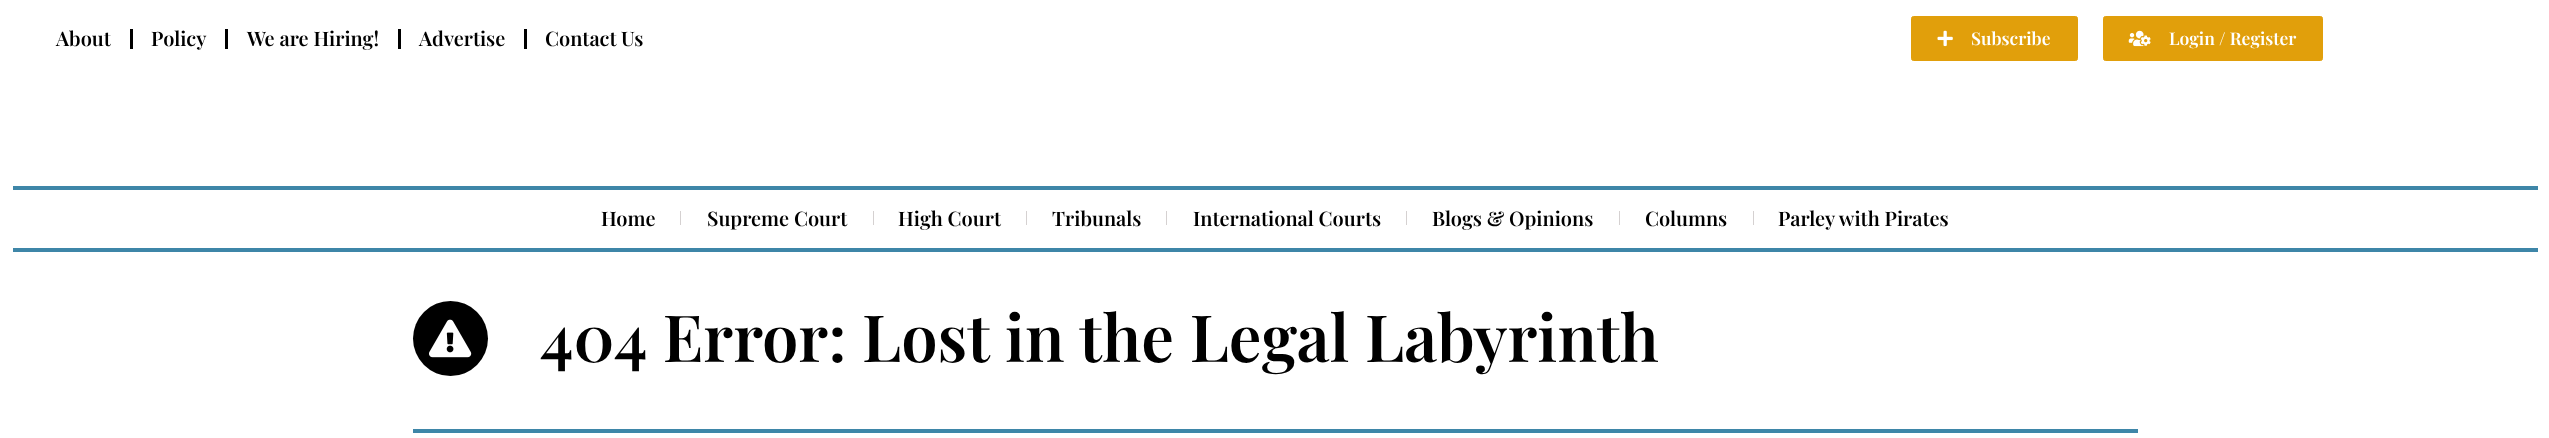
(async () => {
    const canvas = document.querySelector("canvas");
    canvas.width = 2549;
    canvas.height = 438;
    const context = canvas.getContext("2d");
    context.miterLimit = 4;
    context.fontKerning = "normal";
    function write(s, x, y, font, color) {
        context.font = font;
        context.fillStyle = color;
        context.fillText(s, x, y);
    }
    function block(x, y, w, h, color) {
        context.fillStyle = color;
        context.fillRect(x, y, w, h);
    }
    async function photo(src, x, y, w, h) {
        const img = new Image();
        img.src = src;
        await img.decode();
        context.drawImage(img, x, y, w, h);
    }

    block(0, 0, 2549, 438, "rgb(255, 255, 255)");
    write("About", 56, 46, "600 20px Playfair Display", "rgb(0, 0, 0)");
    block(130, 29, 3, 20, "rgb(0, 0, 0)");
    write("Policy", 151, 46, "600 20px Playfair Display", "rgb(0, 0, 0)");
    block(225, 29, 3, 20, "rgb(0, 0, 0)");
    write("We are Hiring!", 247, 46, "600 20px Playfair Display", "rgb(0, 0, 0)");
    block(398, 29, 3, 20, "rgb(0, 0, 0)");
    write("Advertise", 419, 46, "600 20px Playfair Display", "rgb(0, 0, 0)");
    block(524, 29, 3, 20, "rgb(0, 0, 0)");
    write("Contact Us", 545, 46, "600 20px Playfair Display", "rgb(0, 0, 0)");
    context.fillStyle = "rgb(225, 159, 11)";
    context.beginPath();
    context.roundRect(1911.5, 16.5, 166, 44, 2);
    context.fill();
    context.strokeStyle = "rgb(225, 159, 11)";
    context.stroke();
    await photo("media/1.png", 1937, 30, 16, 17);
    write("Subscribe", 1971, 45, "600 17.5px Playfair Display", "rgb(255, 255, 255)");
    context.fillStyle = "rgb(225, 159, 11)";
    context.beginPath();
    context.roundRect(2103.5, 16.5, 219, 44, 2);
    context.fill();
    context.stroke();
    await photo("media/2.png", 2128, 30, 23, 17);
    write("Login / Register", 2169, 45, "600 17.5px Playfair Display", "rgb(255, 255, 255)");
    block(13, 186, 2525, 4, "rgb(62, 134, 168)");
    block(13, 248, 2525, 4, "rgb(62, 134, 168)");
    write("Home", 601, 226, "600 20px Playfair Display", "rgb(0, 0, 0)");
    block(680, 211, 1, 14, "rgb(213, 209, 209)");
    write("Supreme Court", 707, 226, "600 20px Playfair Display", "rgb(0, 0, 0)");
    block(873, 211, 1, 14, "rgb(213, 209, 209)");
    write("High Court", 898, 226, "600 20px Playfair Display", "rgb(0, 0, 0)");
    block(1026, 211, 1, 14, "rgb(213, 209, 209)");
    write("Tribunals", 1052, 226, "600 20px Playfair Display", "rgb(0, 0, 0)");
    block(1166, 211, 1, 14, "rgb(213, 209, 209)");
    write("International Courts", 1193, 226, "600 20px Playfair Display", "rgb(0, 0, 0)");
    block(1406, 211, 1, 14, "rgb(213, 209, 209)");
    write("Blogs & Opinions", 1432, 226, "600 20px Playfair Display", "rgb(0, 0, 0)");
    block(1619, 211, 1, 14, "rgb(213, 209, 209)");
    write("Columns", 1645, 226, "600 20px Playfair Display", "rgb(0, 0, 0)");
    block(1753, 211, 1, 14, "rgb(213, 209, 209)");
    write("Parley with Pirates", 1778, 226, "600 20px Playfair Display", "rgb(0, 0, 0)");
    context.beginPath();
    context.arc(450.5, 338.5, 37.5, 0, Math.PI * 2);
    context.fill();
    await photo("media/3.png", 429, 319, 43, 39);
    write("404 Error: Lost in the Legal Labyrinth", 540, 362, "600 65px Playfair Display", "rgb(0, 0, 0)");
    block(413, 429, 1725, 4, "rgb(62, 134, 168)");
})();
